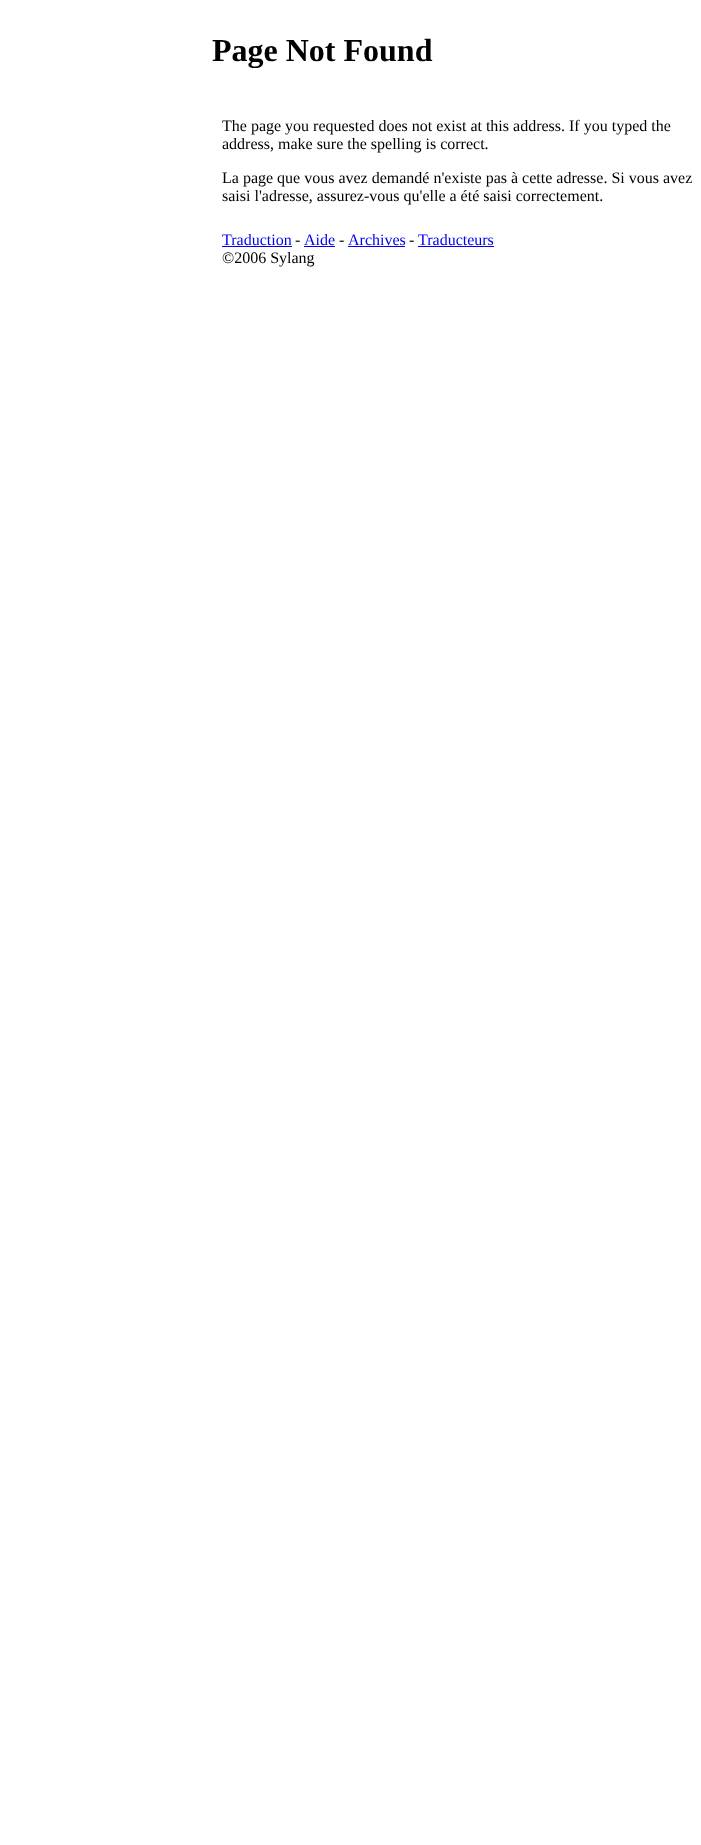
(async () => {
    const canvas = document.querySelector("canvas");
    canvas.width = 701;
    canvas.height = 1845;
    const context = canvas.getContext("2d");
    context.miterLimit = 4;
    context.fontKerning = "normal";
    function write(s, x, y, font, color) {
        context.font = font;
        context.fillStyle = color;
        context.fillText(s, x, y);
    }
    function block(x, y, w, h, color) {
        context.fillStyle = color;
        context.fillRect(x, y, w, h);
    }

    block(0, 0, 701, 1845, "rgb(255, 255, 255)");
    write("Page Not Found", 212, 61, "bold 32px Liberation Serif", "rgb(0, 0, 0)");
    write("The page you requested does not exist at this address. If you typed the", 222, 131, "16px Liberation Serif", "rgb(0, 0, 0)");
    write("address, make sure the spelling is correct.", 222, 149, "16px Liberation Serif", "rgb(0, 0, 0)");
    write("La page que vous avez demandé n'existe pas à cette adresse. Si vous avez", 222, 183, "16px Liberation Serif", "rgb(0, 0, 0)");
    write("saisi l'adresse, assurez-vous qu'elle a été saisi correctement.", 222, 201, "16px Liberation Serif", "rgb(0, 0, 0)");
    write("Traduction", 222, 245, "16px Liberation Serif", "rgb(0, 0, 238)");
    block(222, 246, 70, 1, "rgb(0, 0, 238)");
    write("-", 295, 245, "16px Liberation Serif", "rgb(0, 0, 0)");
    write("Aide", 304, 245, "16px Liberation Serif", "rgb(0, 0, 238)");
    block(304, 246, 31, 1, "rgb(0, 0, 238)");
    write("-", 339, 245, "16px Liberation Serif", "rgb(0, 0, 0)");
    write("Archives", 348, 245, "16px Liberation Serif", "rgb(0, 0, 238)");
    block(348, 246, 57, 1, "rgb(0, 0, 238)");
    write("-", 409, 245, "16px Liberation Serif", "rgb(0, 0, 0)");
    write("Traducteurs", 418, 245, "16px Liberation Serif", "rgb(0, 0, 238)");
    block(418, 246, 76, 1, "rgb(0, 0, 238)");
    write("©2006 Sylang", 222, 263, "16px Liberation Serif", "rgb(0, 0, 0)");
})();
